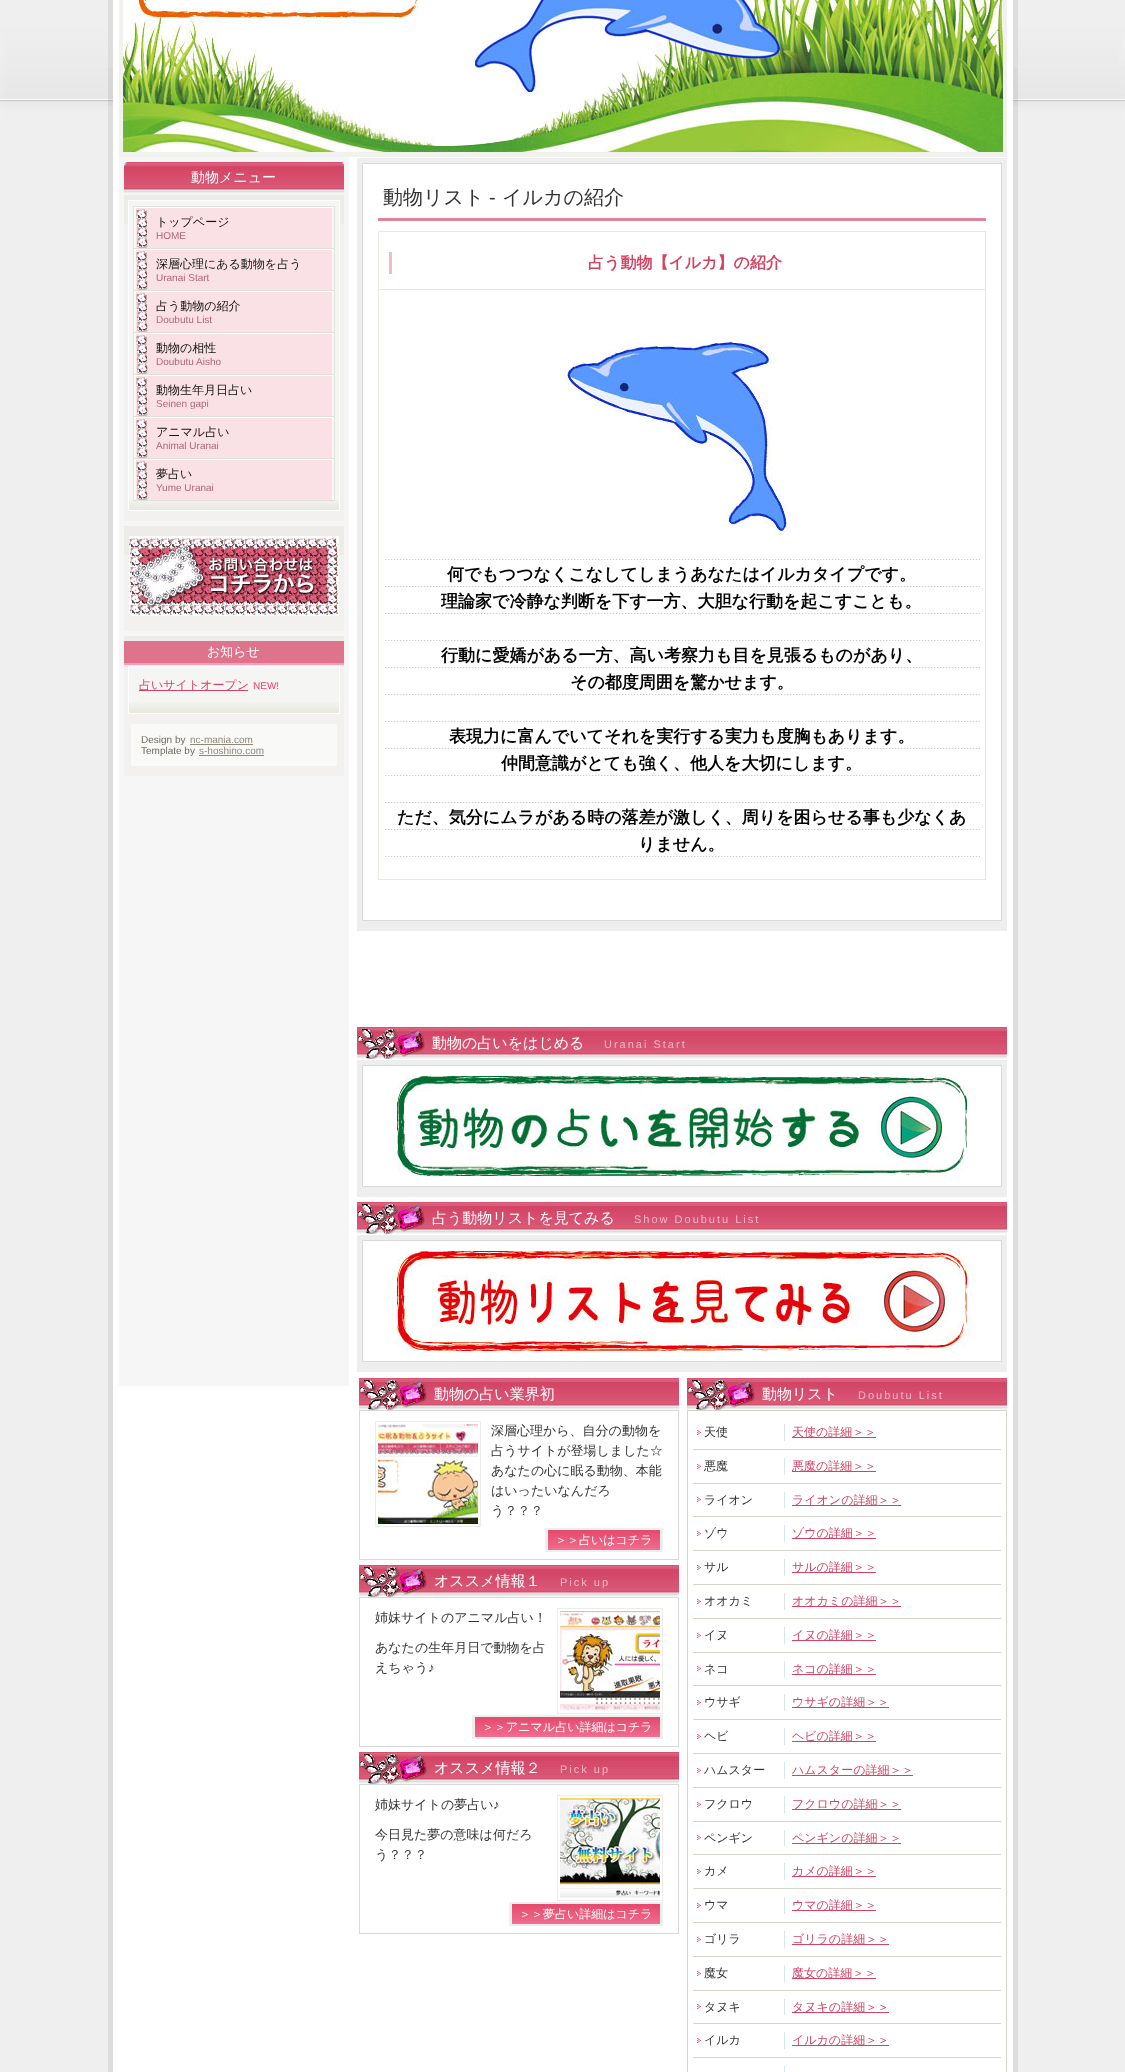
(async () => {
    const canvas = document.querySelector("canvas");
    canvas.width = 1125;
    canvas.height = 2072;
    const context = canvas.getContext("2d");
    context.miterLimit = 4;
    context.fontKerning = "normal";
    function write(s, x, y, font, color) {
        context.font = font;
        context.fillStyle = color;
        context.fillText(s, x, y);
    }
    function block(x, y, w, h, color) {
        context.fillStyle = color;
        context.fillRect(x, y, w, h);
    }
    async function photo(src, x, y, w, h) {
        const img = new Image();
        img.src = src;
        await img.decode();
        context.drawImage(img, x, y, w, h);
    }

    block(0, 0, 1125, 2072, "rgb(239, 239, 239)");
    await photo("media/1.png", 0, 0, 1125, 120);
    block(108, 0, 910, 2072, "rgb(221, 221, 221)");
    await photo("media/2.png", 108, 68, 910, 38);
    block(113, 0, 900, 2072, "rgb(255, 255, 255)");
    block(119, 0, 888, 157, "rgb(241, 241, 237)");
    await photo("media/3.png", 123, 0, 880, 152);
    block(119, 157, 230, 1229, "rgb(246, 246, 246)");
    await photo("media/4.png", 124, 162, 220, 31);
    write("動物メニュー", 191, 182, "500 14px WenQuanYi Zen Hei", "rgb(255, 255, 255)");
    block(124, 224, 220, 297, "rgb(242, 241, 239)");
    block(124, 195, 220, 29, "rgb(237, 236, 233)");
    block(129, 201, 210, 298, "rgb(245, 245, 244)");
    await photo("media/5.png", 129, 499, 210, 12);
    block(128, 200, 212, 1, "rgb(255, 255, 255)");
    block(339, 200, 1, 311, "rgb(255, 255, 255)");
    block(128, 200, 1, 311, "rgb(255, 255, 255)");
    block(133, 206, 202, 1, "rgb(227, 227, 227)");
    block(334, 206, 1, 295, "rgb(227, 227, 227)");
    block(133, 206, 1, 295, "rgb(227, 227, 227)");
    block(134, 208, 200, 40, "rgb(248, 248, 245)");
    await photo("media/6.png", 136, 208, 196, 40);
    block(134, 207, 200, 1, "rgb(255, 255, 255)");
    block(134, 248, 200, 1, "rgb(224, 224, 216)");
    write("トップページ", 156, 226, "500 12px WenQuanYi Zen Hei", "rgb(20, 19, 12)");
    write("HOME", 156, 239, "10px Liberation Sans", "rgb(174, 102, 118)");
    block(134, 250, 200, 40, "rgb(248, 248, 245)");
    await photo("media/6.png", 136, 250, 196, 40);
    block(134, 249, 200, 1, "rgb(255, 255, 255)");
    block(134, 290, 200, 1, "rgb(224, 224, 216)");
    write("深層心理にある動物を占う", 156, 268, "500 12px WenQuanYi Zen Hei", "rgb(20, 19, 12)");
    write("Uranai Start", 156, 281, "10px Liberation Sans", "rgb(174, 102, 118)");
    block(134, 292, 200, 40, "rgb(248, 248, 245)");
    await photo("media/6.png", 136, 292, 196, 40);
    block(134, 291, 200, 1, "rgb(255, 255, 255)");
    block(134, 332, 200, 1, "rgb(224, 224, 216)");
    write("占う動物の紹介", 156, 310, "500 12px WenQuanYi Zen Hei", "rgb(20, 19, 12)");
    write("Doubutu List", 156, 323, "10px Liberation Sans", "rgb(174, 102, 118)");
    block(134, 334, 200, 40, "rgb(248, 248, 245)");
    await photo("media/6.png", 136, 334, 196, 40);
    block(134, 333, 200, 1, "rgb(255, 255, 255)");
    block(134, 374, 200, 1, "rgb(224, 224, 216)");
    write("動物の相性", 156, 352, "500 12px WenQuanYi Zen Hei", "rgb(20, 19, 12)");
    write("Doubutu Aisho", 156, 365, "10px Liberation Sans", "rgb(174, 102, 118)");
    block(134, 376, 200, 40, "rgb(248, 248, 245)");
    await photo("media/6.png", 136, 376, 196, 40);
    block(134, 375, 200, 1, "rgb(255, 255, 255)");
    block(134, 416, 200, 1, "rgb(224, 224, 216)");
    write("動物生年月日占い", 156, 394, "500 12px WenQuanYi Zen Hei", "rgb(20, 19, 12)");
    write("Seinen gapi", 156, 407, "10px Liberation Sans", "rgb(174, 102, 118)");
    block(134, 418, 200, 40, "rgb(248, 248, 245)");
    await photo("media/6.png", 136, 418, 196, 40);
    block(134, 417, 200, 1, "rgb(255, 255, 255)");
    block(134, 458, 200, 1, "rgb(224, 224, 216)");
    write("アニマル占い", 156, 436, "500 12px WenQuanYi Zen Hei", "rgb(20, 19, 12)");
    write("Animal Uranai", 156, 449, "10px Liberation Sans", "rgb(174, 102, 118)");
    block(134, 460, 200, 40, "rgb(248, 248, 245)");
    await photo("media/6.png", 136, 460, 196, 40);
    block(134, 459, 200, 1, "rgb(255, 255, 255)");
    block(134, 500, 200, 1, "rgb(224, 224, 216)");
    write("夢占い", 156, 478, "500 12px WenQuanYi Zen Hei", "rgb(20, 19, 12)");
    write("Yume Uranai", 156, 491, "10px Liberation Sans", "rgb(174, 102, 118)");
    block(124, 555, 220, 76, "rgb(242, 241, 239)");
    block(124, 526, 220, 29, "rgb(237, 236, 233)");
    await photo("media/7.png", 129, 536, 210, 80);
    block(124, 665, 220, 111, "rgb(242, 241, 239)");
    block(124, 636, 220, 5, "rgb(237, 236, 233)");
    block(124, 641, 220, 22, "rgb(222, 115, 140)");
    block(124, 663, 220, 2, "rgb(252, 154, 186)");
    write("お知らせ", 207, 656, "500 13px WenQuanYi Zen Hei", "rgb(255, 255, 255)");
    block(129, 667, 210, 35, "rgb(245, 245, 244)");
    await photo("media/5.png", 129, 702, 210, 12);
    block(128, 666, 212, 1, "rgb(255, 255, 255)");
    block(339, 666, 1, 48, "rgb(255, 255, 255)");
    block(128, 666, 1, 48, "rgb(255, 255, 255)");
    block(139, 690, 109, 1, "rgb(211, 67, 100)");
    write("占いサイトオープン", 139, 689, "500 12px WenQuanYi Zen Hei", "rgb(211, 67, 100)");
    write("NEW!", 253, 689, "10px Liberation Sans", "rgb(255, 51, 102)");
    block(131, 724, 206, 42, "rgb(249, 249, 247)");
    write("Design by", 141, 743, "10px Liberation Sans", "rgb(111, 107, 94)");
    write("nc-mania.com", 190, 743, "10px Liberation Sans", "rgb(142, 137, 121)");
    block(190, 744, 63, 1, "rgb(142, 137, 121)");
    write("Template by", 141, 754, "10px Liberation Sans", "rgb(111, 107, 94)");
    write("s-hoshino.com", 199, 754, "10px Liberation Sans", "rgb(142, 137, 121)");
    block(199, 755, 65, 1, "rgb(142, 137, 121)");
    block(357, 158, 650, 773, "rgb(238, 238, 238)");
    context.fillStyle = "rgb(255, 255, 255)";
    context.beginPath();
    context.rect(362.5, 163.5, 639, 757);
    context.fill();
    context.strokeStyle = "rgb(217, 217, 217)";
    context.stroke();
    block(378, 218, 608, 3, "rgb(225, 131, 152)");
    write("動物リスト", 383, 204, "500 20px WenQuanYi Zen Hei", "rgb(51, 51, 51)");
    write("-", 489, 204, "20px Liberation Sans", "rgb(51, 51, 51)");
    write("イルカの紹介", 502, 204, "500 20px WenQuanYi Zen Hei", "rgb(51, 51, 51)");
    block(378, 231, 608, 1, "rgb(234, 232, 223)");
    block(378, 289, 608, 1, "rgb(234, 232, 223)");
    block(985, 289, 1, 591, "rgb(234, 232, 223)");
    block(985, 231, 1, 59, "rgb(234, 232, 223)");
    block(378, 879, 608, 1, "rgb(234, 232, 223)");
    block(378, 289, 1, 591, "rgb(234, 232, 223)");
    block(378, 231, 1, 59, "rgb(234, 232, 223)");
    block(389, 252, 3, 22, "rgb(238, 187, 199)");
    write("占う動物【イルカ】の紹介", 588, 268, "bold 16px WenQuanYi Zen Hei", "rgb(211, 67, 100)");
    await photo("media/8.png", 565, 335, 224, 200);
    await photo("media/9.png", 385, 559, 595, 298);
    write("何でもつつなくこなしてしまうあなたはイルカタイプです。", 447, 580, "bold 17px WenQuanYi Zen Hei", "rgb(0, 0, 0)");
    write("理論家で冷静な判断を下す一方、大胆な行動を起こすことも。", 441, 607, "bold 17px WenQuanYi Zen Hei", "rgb(0, 0, 0)");
    write("行動に愛嬌がある一方、高い考察力も目を見張るものがあり、", 441, 661, "bold 17px WenQuanYi Zen Hei", "rgb(0, 0, 0)");
    write("その都度周囲を驚かせます。", 570, 688, "bold 17px WenQuanYi Zen Hei", "rgb(0, 0, 0)");
    write("表現力に富んでいてそれを実行する実力も度胸もあります。", 449, 742, "bold 17px WenQuanYi Zen Hei", "rgb(0, 0, 0)");
    write("仲間意識がとても強く、他人を大切にします。", 501, 769, "bold 17px WenQuanYi Zen Hei", "rgb(0, 0, 0)");
    write("ただ、気分にムラがある時の落差が激しく、周りを困らせる事も少なくあ", 397, 823, "bold 17px WenQuanYi Zen Hei", "rgb(0, 0, 0)");
    write("りません。", 638, 850, "bold 17px WenQuanYi Zen Hei", "rgb(0, 0, 0)");
    block(357, 1027, 650, 1, "rgb(215, 81, 111)");
    await photo("media/10.png", 357, 1028, 650, 31);
    write("動物の占いをはじめる", 432, 1048, "500 15px WenQuanYi Zen Hei", "rgb(255, 255, 255)");
    context.letterSpacing = "2px";
    write("Uranai Start", 604, 1048, "11px Liberation Sans", "rgb(244, 183, 199)");
    block(357, 1060, 650, 137, "rgb(238, 238, 238)");
    context.fillStyle = "rgb(255, 255, 255)";
    context.beginPath();
    context.rect(362.5, 1065.5, 639, 121);
    context.fill();
    context.stroke();
    await photo("media/11.png", 397, 1076, 570, 100);
    block(357, 1202, 650, 1, "rgb(215, 81, 111)");
    await photo("media/10.png", 357, 1203, 650, 31);
    context.letterSpacing = "0px";
    write("占う動物リストを見てみる", 432, 1223, "500 15px WenQuanYi Zen Hei", "rgb(255, 255, 255)");
    context.letterSpacing = "2px";
    write("Show Doubutu List", 634, 1223, "11px Liberation Sans", "rgb(244, 183, 199)");
    block(357, 1235, 650, 137, "rgb(238, 238, 238)");
    context.fillStyle = "rgb(255, 255, 255)";
    context.beginPath();
    context.rect(362.5, 1240.5, 639, 121);
    context.fill();
    context.stroke();
    await photo("media/12.png", 397, 1251, 570, 100);
    block(359, 1378, 320, 1, "rgb(215, 81, 111)");
    await photo("media/13.png", 359, 1379, 320, 31);
    context.letterSpacing = "0px";
    write("動物の占い業界初", 434, 1399, "500 15px WenQuanYi Zen Hei", "rgb(255, 255, 255)");
    context.strokeRect(359.5, 1410.5, 319, 149);
    context.strokeStyle = "rgb(237, 236, 233)";
    context.strokeRect(375.5, 1421.5, 105, 105);
    await photo("media/14.png", 378, 1424, 100, 100);
    write("深層心理から、自分の動物を", 491, 1435, "500 13px WenQuanYi Zen Hei", "rgb(51, 51, 51)");
    write("占うサイトが登場しました☆", 491, 1455, "500 13px WenQuanYi Zen Hei", "rgb(51, 51, 51)");
    write("あなたの心に眠る動物、本能", 491, 1475, "500 13px WenQuanYi Zen Hei", "rgb(51, 51, 51)");
    write("はいったいなんだろ", 491, 1495, "500 13px WenQuanYi Zen Hei", "rgb(51, 51, 51)");
    write("う？？？", 491, 1515, "500 13px WenQuanYi Zen Hei", "rgb(51, 51, 51)");
    await photo("media/15.png", 548, 1530, 112, 18);
    write("＞＞占いはコチラ", 555, 1544, "500 12px WenQuanYi Zen Hei", "rgb(255, 255, 255)");
    block(548, 1548, 112, 2, "rgb(242, 108, 141)");
    block(545, 1528, 118, 2, "rgb(238, 240, 240)");
    block(660, 1528, 3, 24, "rgb(238, 240, 240)");
    block(545, 1550, 118, 2, "rgb(238, 240, 240)");
    block(545, 1528, 3, 24, "rgb(238, 240, 240)");
    block(359, 1565, 320, 1, "rgb(215, 81, 111)");
    await photo("media/13.png", 359, 1566, 320, 31);
    write("オススメ情報１", 434, 1586, "500 15px WenQuanYi Zen Hei", "rgb(255, 255, 255)");
    context.letterSpacing = "2px";
    write("Pick up", 560, 1586, "11px Liberation Sans", "rgb(244, 183, 199)");
    context.strokeStyle = "rgb(217, 217, 217)";
    context.strokeRect(359.5, 1597.5, 319, 149);
    context.letterSpacing = "0px";
    write("姉妹サイトのアニマル占い！", 375, 1622, "500 13px WenQuanYi Zen Hei", "rgb(51, 51, 51)");
    context.strokeStyle = "rgb(237, 236, 233)";
    context.strokeRect(557.5, 1608.5, 105, 105);
    await photo("media/16.png", 560, 1611, 100, 100);
    write("あなたの生年月日で動物を占", 375, 1652, "500 13px WenQuanYi Zen Hei", "rgb(51, 51, 51)");
    write("えちゃう", 375, 1672, "500 13px WenQuanYi Zen Hei", "rgb(51, 51, 51)");
    write("♪", 428, 1672, "13px Liberation Sans", "rgb(51, 51, 51)");
    await photo("media/17.png", 475, 1717, 185, 18);
    write("＞＞アニマル占い詳細はコチラ", 482, 1731, "500 12px WenQuanYi Zen Hei", "rgb(255, 255, 255)");
    block(475, 1735, 185, 2, "rgb(242, 108, 141)");
    block(472, 1715, 191, 2, "rgb(238, 240, 240)");
    block(660, 1715, 3, 24, "rgb(238, 240, 240)");
    block(472, 1737, 191, 2, "rgb(238, 240, 240)");
    block(472, 1715, 3, 24, "rgb(238, 240, 240)");
    block(359, 1752, 320, 1, "rgb(215, 81, 111)");
    await photo("media/13.png", 359, 1753, 320, 31);
    write("オススメ情報２", 434, 1773, "500 15px WenQuanYi Zen Hei", "rgb(255, 255, 255)");
    context.letterSpacing = "2px";
    write("Pick up", 560, 1773, "11px Liberation Sans", "rgb(244, 183, 199)");
    context.strokeStyle = "rgb(217, 217, 217)";
    context.strokeRect(359.5, 1784.5, 319, 149);
    context.letterSpacing = "0px";
    write("姉妹サイトの夢占い", 375, 1809, "500 13px WenQuanYi Zen Hei", "rgb(51, 51, 51)");
    write("♪", 493, 1809, "13px Liberation Sans", "rgb(51, 51, 51)");
    context.strokeStyle = "rgb(237, 236, 233)";
    context.strokeRect(557.5, 1795.5, 105, 105);
    await photo("media/18.png", 560, 1798, 100, 100);
    write("今日見た夢の意味は何だろ", 375, 1839, "500 13px WenQuanYi Zen Hei", "rgb(51, 51, 51)");
    write("う？？？", 375, 1859, "500 13px WenQuanYi Zen Hei", "rgb(51, 51, 51)");
    await photo("media/19.png", 512, 1904, 148, 18);
    write("＞＞夢占い詳細はコチラ", 519, 1918, "500 12px WenQuanYi Zen Hei", "rgb(255, 255, 255)");
    block(512, 1922, 148, 2, "rgb(242, 108, 141)");
    block(509, 1902, 154, 2, "rgb(238, 240, 240)");
    block(660, 1902, 3, 24, "rgb(238, 240, 240)");
    block(509, 1924, 154, 2, "rgb(238, 240, 240)");
    block(509, 1902, 3, 24, "rgb(238, 240, 240)");
    block(687, 1378, 320, 1, "rgb(215, 81, 111)");
    await photo("media/13.png", 687, 1379, 320, 31);
    write("動物リスト", 762, 1399, "500 15px WenQuanYi Zen Hei", "rgb(255, 255, 255)");
    context.letterSpacing = "2px";
    write("Doubutu List", 858, 1399, "11px Liberation Sans", "rgb(244, 183, 199)");
    context.strokeStyle = "rgb(214, 213, 203)";
    context.strokeRect(687.5, 1410.5, 319, 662);
    block(693, 1449, 308, 1, "rgb(214, 213, 203)");
    await photo("media/20.png", 697, 1430, 4, 5);
    context.letterSpacing = "0px";
    write("天使", 704, 1436, "500 12px WenQuanYi Zen Hei", "rgb(51, 51, 51)");
    block(784, 1424, 1, 17, "rgb(215, 230, 232)");
    block(792, 1437, 84, 1, "rgb(211, 67, 100)");
    write("天使の詳細＞＞", 792, 1436, "500 12px WenQuanYi Zen Hei", "rgb(211, 67, 100)");
    block(693, 1483, 308, 1, "rgb(214, 213, 203)");
    await photo("media/20.png", 697, 1464, 4, 5);
    write("悪魔", 704, 1470, "500 12px WenQuanYi Zen Hei", "rgb(51, 51, 51)");
    block(784, 1458, 1, 17, "rgb(215, 230, 232)");
    block(792, 1471, 84, 1, "rgb(211, 67, 100)");
    write("悪魔の詳細＞＞", 792, 1470, "500 12px WenQuanYi Zen Hei", "rgb(211, 67, 100)");
    block(693, 1516, 308, 1, "rgb(214, 213, 203)");
    await photo("media/20.png", 697, 1497, 4, 5);
    write("ライオン", 704, 1504, "500 12px WenQuanYi Zen Hei", "rgb(51, 51, 51)");
    block(784, 1492, 1, 16, "rgb(215, 230, 232)");
    block(792, 1505, 109, 1, "rgb(211, 67, 100)");
    write("ライオンの詳細＞＞", 792, 1504, "500 12px WenQuanYi Zen Hei", "rgb(211, 67, 100)");
    block(693, 1550, 308, 1, "rgb(214, 213, 203)");
    await photo("media/20.png", 697, 1531, 4, 5);
    write("ゾウ", 704, 1537, "500 12px WenQuanYi Zen Hei", "rgb(51, 51, 51)");
    block(784, 1525, 1, 17, "rgb(215, 230, 232)");
    block(792, 1538, 84, 1, "rgb(211, 67, 100)");
    write("ゾウの詳細＞＞", 792, 1537, "500 12px WenQuanYi Zen Hei", "rgb(211, 67, 100)");
    block(693, 1584, 308, 1, "rgb(214, 213, 203)");
    await photo("media/20.png", 697, 1565, 4, 5);
    write("サル", 704, 1571, "500 12px WenQuanYi Zen Hei", "rgb(51, 51, 51)");
    block(784, 1559, 1, 17, "rgb(215, 230, 232)");
    block(792, 1572, 84, 1, "rgb(211, 67, 100)");
    write("サルの詳細＞＞", 792, 1571, "500 12px WenQuanYi Zen Hei", "rgb(211, 67, 100)");
    block(693, 1618, 308, 1, "rgb(214, 213, 203)");
    await photo("media/20.png", 697, 1599, 4, 5);
    write("オオカミ", 704, 1605, "500 12px WenQuanYi Zen Hei", "rgb(51, 51, 51)");
    block(784, 1593, 1, 17, "rgb(215, 230, 232)");
    block(792, 1606, 109, 1, "rgb(211, 67, 100)");
    write("オオカミの詳細＞＞", 792, 1605, "500 12px WenQuanYi Zen Hei", "rgb(211, 67, 100)");
    block(693, 1652, 308, 1, "rgb(214, 213, 203)");
    await photo("media/20.png", 697, 1633, 4, 5);
    write("イヌ", 704, 1639, "500 12px WenQuanYi Zen Hei", "rgb(51, 51, 51)");
    block(784, 1627, 1, 17, "rgb(215, 230, 232)");
    block(792, 1640, 84, 1, "rgb(211, 67, 100)");
    write("イヌの詳細＞＞", 792, 1639, "500 12px WenQuanYi Zen Hei", "rgb(211, 67, 100)");
    block(693, 1685, 308, 1, "rgb(214, 213, 203)");
    await photo("media/20.png", 697, 1666, 4, 5);
    write("ネコ", 704, 1673, "500 12px WenQuanYi Zen Hei", "rgb(51, 51, 51)");
    block(784, 1661, 1, 16, "rgb(215, 230, 232)");
    block(792, 1674, 84, 1, "rgb(211, 67, 100)");
    write("ネコの詳細＞＞", 792, 1673, "500 12px WenQuanYi Zen Hei", "rgb(211, 67, 100)");
    block(693, 1719, 308, 1, "rgb(214, 213, 203)");
    await photo("media/20.png", 697, 1700, 4, 5);
    write("ウサギ", 704, 1706, "500 12px WenQuanYi Zen Hei", "rgb(51, 51, 51)");
    block(784, 1694, 1, 17, "rgb(215, 230, 232)");
    block(792, 1707, 97, 1, "rgb(211, 67, 100)");
    write("ウサギの詳細＞＞", 792, 1706, "500 12px WenQuanYi Zen Hei", "rgb(211, 67, 100)");
    block(693, 1753, 308, 1, "rgb(214, 213, 203)");
    await photo("media/20.png", 697, 1734, 4, 5);
    write("ヘビ", 704, 1740, "500 12px WenQuanYi Zen Hei", "rgb(51, 51, 51)");
    block(784, 1728, 1, 17, "rgb(215, 230, 232)");
    block(792, 1741, 84, 1, "rgb(211, 67, 100)");
    write("ヘビの詳細＞＞", 792, 1740, "500 12px WenQuanYi Zen Hei", "rgb(211, 67, 100)");
    block(693, 1787, 308, 1, "rgb(214, 213, 203)");
    await photo("media/20.png", 697, 1768, 4, 5);
    write("ハムスター", 704, 1774, "500 12px WenQuanYi Zen Hei", "rgb(51, 51, 51)");
    block(784, 1762, 1, 17, "rgb(215, 230, 232)");
    block(792, 1775, 121, 1, "rgb(211, 67, 100)");
    write("ハムスターの詳細＞＞", 792, 1774, "500 12px WenQuanYi Zen Hei", "rgb(211, 67, 100)");
    block(693, 1821, 308, 1, "rgb(214, 213, 203)");
    await photo("media/20.png", 697, 1802, 4, 5);
    write("フクロウ", 704, 1808, "500 12px WenQuanYi Zen Hei", "rgb(51, 51, 51)");
    block(784, 1796, 1, 17, "rgb(215, 230, 232)");
    block(792, 1809, 109, 1, "rgb(211, 67, 100)");
    write("フクロウの詳細＞＞", 792, 1808, "500 12px WenQuanYi Zen Hei", "rgb(211, 67, 100)");
    block(693, 1854, 308, 1, "rgb(214, 213, 203)");
    await photo("media/20.png", 697, 1835, 4, 5);
    write("ペンギン", 704, 1842, "500 12px WenQuanYi Zen Hei", "rgb(51, 51, 51)");
    block(784, 1830, 1, 16, "rgb(215, 230, 232)");
    block(792, 1843, 109, 1, "rgb(211, 67, 100)");
    write("ペンギンの詳細＞＞", 792, 1842, "500 12px WenQuanYi Zen Hei", "rgb(211, 67, 100)");
    block(693, 1888, 308, 1, "rgb(214, 213, 203)");
    await photo("media/20.png", 697, 1869, 4, 5);
    write("カメ", 704, 1875, "500 12px WenQuanYi Zen Hei", "rgb(51, 51, 51)");
    block(784, 1863, 1, 17, "rgb(215, 230, 232)");
    block(792, 1876, 84, 1, "rgb(211, 67, 100)");
    write("カメの詳細＞＞", 792, 1875, "500 12px WenQuanYi Zen Hei", "rgb(211, 67, 100)");
    block(693, 1922, 308, 1, "rgb(214, 213, 203)");
    await photo("media/20.png", 697, 1903, 4, 5);
    write("ウマ", 704, 1909, "500 12px WenQuanYi Zen Hei", "rgb(51, 51, 51)");
    block(784, 1897, 1, 17, "rgb(215, 230, 232)");
    block(792, 1910, 84, 1, "rgb(211, 67, 100)");
    write("ウマの詳細＞＞", 792, 1909, "500 12px WenQuanYi Zen Hei", "rgb(211, 67, 100)");
    block(693, 1956, 308, 1, "rgb(214, 213, 203)");
    await photo("media/20.png", 697, 1937, 4, 5);
    write("ゴリラ", 704, 1943, "500 12px WenQuanYi Zen Hei", "rgb(51, 51, 51)");
    block(784, 1931, 1, 17, "rgb(215, 230, 232)");
    block(792, 1944, 97, 1, "rgb(211, 67, 100)");
    write("ゴリラの詳細＞＞", 792, 1943, "500 12px WenQuanYi Zen Hei", "rgb(211, 67, 100)");
    block(693, 1990, 308, 1, "rgb(214, 213, 203)");
    await photo("media/20.png", 697, 1971, 4, 5);
    write("魔女", 704, 1977, "500 12px WenQuanYi Zen Hei", "rgb(51, 51, 51)");
    block(784, 1965, 1, 17, "rgb(215, 230, 232)");
    block(792, 1978, 84, 1, "rgb(211, 67, 100)");
    write("魔女の詳細＞＞", 792, 1977, "500 12px WenQuanYi Zen Hei", "rgb(211, 67, 100)");
    block(693, 2023, 308, 1, "rgb(214, 213, 203)");
    await photo("media/20.png", 697, 2004, 4, 5);
    write("タヌキ", 704, 2011, "500 12px WenQuanYi Zen Hei", "rgb(51, 51, 51)");
    block(784, 1999, 1, 16, "rgb(215, 230, 232)");
    block(792, 2012, 97, 1, "rgb(211, 67, 100)");
    write("タヌキの詳細＞＞", 792, 2011, "500 12px WenQuanYi Zen Hei", "rgb(211, 67, 100)");
    block(693, 2057, 308, 1, "rgb(214, 213, 203)");
    await photo("media/20.png", 697, 2038, 4, 5);
    write("イルカ", 704, 2044, "500 12px WenQuanYi Zen Hei", "rgb(51, 51, 51)");
    block(784, 2032, 1, 17, "rgb(215, 230, 232)");
    block(792, 2045, 97, 1, "rgb(211, 67, 100)");
    write("イルカの詳細＞＞", 792, 2044, "500 12px WenQuanYi Zen Hei", "rgb(211, 67, 100)");
    block(784, 2066, 1, 6, "rgb(215, 230, 232)");
})();
